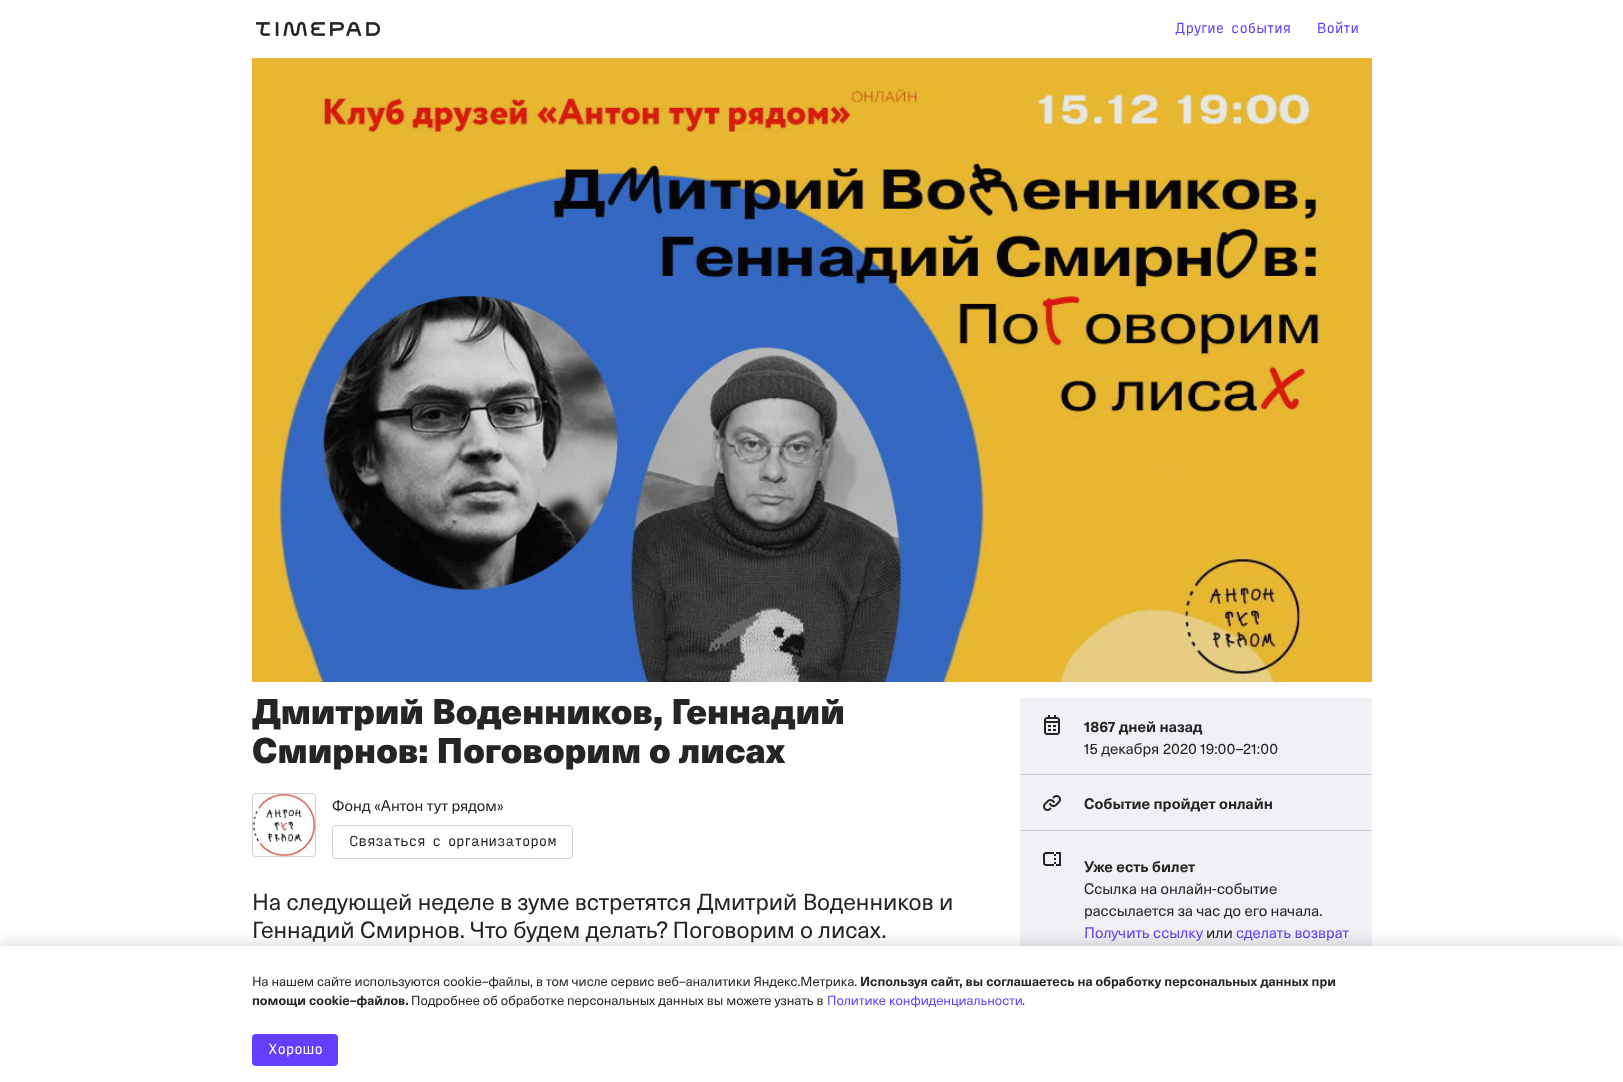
(async () => {
    const canvas = document.querySelector("canvas");
    canvas.width = 1623;
    canvas.height = 1082;
    const context = canvas.getContext("2d");
    context.miterLimit = 4;
    context.fontKerning = "normal";
    function write(s, x, y, font, color) {
        context.font = font;
        context.fillStyle = color;
        context.fillText(s, x, y);
    }
    function block(x, y, w, h, color) {
        context.fillStyle = color;
        context.fillRect(x, y, w, h);
    }
    function card(x, y, w, h, r, color) {
        context.fillStyle = color;
        context.beginPath();
        context.roundRect(x, y, w, h, r);
        context.fill();
    }
    async function photo(src, x, y, w, h) {
        const img = new Image();
        img.src = src;
        await img.decode();
        context.drawImage(img, x, y, w, h);
    }

    block(0, 0, 1623, 1082, "rgb(255, 255, 255)");
    await photo("media/1.png", 256, 21, 124, 16);
    write("Другие события", 1175, 33, "14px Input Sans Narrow", "rgb(100, 63, 255)");
    write("Войти", 1317, 33, "14px Input Sans Narrow", "rgb(100, 63, 255)");
    await photo("media/2.png", 252, 58, 1120, 624);
    write("Дмитрий Воденников, Геннадий", 252, 724, "900 35px 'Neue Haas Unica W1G'", "rgb(37, 37, 37)");
    write("Смирнов: Поговорим о лисах", 252, 763, "900 35px 'Neue Haas Unica W1G'", "rgb(37, 37, 37)");
    await photo("media/3.png", 252, 793, 64, 64);
    context.beginPath();
    context.roundRect(252.5, 793.5, 63, 63, 3.5);
    context.strokeStyle = "rgba(37, 37, 37, 0.2)";
    context.stroke();
    write("Фонд «Антон тут рядом»", 332, 811, "15px 'Neue Haas Unica W1G'", "rgb(37, 37, 37)");
    context.beginPath();
    context.roundRect(332.5, 825.5, 240, 33, 3.5);
    context.strokeStyle = "rgb(211, 211, 211)";
    context.stroke();
    write("Связаться с организатором", 349, 846, "14px Input Sans Narrow", "rgb(37, 37, 37)");
    write("На следующей неделе в зуме встретятся Дмитрий Воденников и", 252, 910, "23px 'Neue Haas Unica W1G'", "rgb(37, 37, 37)");
    write("Геннадий Смирнов. Что будем делать? Поговорим о лисах.", 252, 938, "23px 'Neue Haas Unica W1G'", "rgb(37, 37, 37)");
    block(1020, 698, 352, 76, "rgb(241, 240, 245)");
    await photo("media/4.png", 1044, 715, 16, 20);
    write("1867 дней назад", 1084, 732, "bold 15px 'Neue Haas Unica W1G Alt'", "rgb(37, 37, 37)");
    write("15 декабря 2020 19:00–21:00", 1084, 754, "15px 'Neue Haas Unica W1G Alt'", "rgb(37, 37, 37)");
    block(1020, 775, 352, 55, "rgb(241, 240, 245)");
    block(1020, 774, 352, 1, "rgb(206, 205, 222)");
    await photo("media/5.png", 1043, 795, 18, 16);
    write("Событие пройдет онлайн", 1084, 809, "bold 15px 'Neue Haas Unica W1G'", "rgb(37, 37, 37)");
    block(1020, 831, 352, 115, "rgb(241, 240, 245)");
    block(1020, 830, 352, 1, "rgb(206, 205, 222)");
    await photo("media/6.png", 1043, 852, 18, 14);
    write("Уже есть билет", 1084, 872, "bold 15px 'Neue Haas Unica W1G'", "rgb(37, 37, 37)");
    write("Ссылка на онлайн-событие", 1084, 894, "15px 'Neue Haas Unica W1G'", "rgb(37, 37, 37)");
    write("рассылается за час до его начала.", 1084, 916, "15px 'Neue Haas Unica W1G'", "rgb(37, 37, 37)");
    write("Получить ссылку", 1084, 938, "15px 'Neue Haas Unica W1G'", "rgb(100, 63, 255)");
    write("или", 1206, 938, "15px 'Neue Haas Unica W1G'", "rgb(37, 37, 37)");
    write("сделать возврат", 1236, 938, "15px 'Neue Haas Unica W1G'", "rgb(100, 63, 255)");
    context.fillStyle = "rgba(0, 0, 0, 0.2)";
    context.filter = "blur(8px)";
    context.beginPath();
    context.rect(0, 946, 1623, 136);
    context.fill();
    context.filter = "none";
    block(0, 946, 1623, 136, "rgb(255, 255, 255)");
    write("На нашем сайте используются cookie–файлы, в том числе сервис веб–аналитики Яндекс.Метрика.", 252, 986, "13px 'Neue Haas Unica W1G'", "rgb(37, 37, 37)");
    write("Используя сайт, вы соглашаетесь на обработку персональных данных при", 860, 986, "bold 13px 'Neue Haas Unica W1G'", "rgb(37, 37, 37)");
    write("помощи cookie–файлов.", 252, 1005, "bold 13px 'Neue Haas Unica W1G'", "rgb(37, 37, 37)");
    write("Подробнее об обработке персональных данных вы можете узнать в", 411, 1005, "13px 'Neue Haas Unica W1G'", "rgb(37, 37, 37)");
    write("Политике конфиденциальности", 827, 1005, "13px 'Neue Haas Unica W1G'", "rgb(100, 63, 255)");
    write(".", 1022, 1005, "13px 'Neue Haas Unica W1G'", "rgb(37, 37, 37)");
    card(252, 1034, 86, 32, 4, "rgb(100, 63, 255)");
    write("Хорошо", 268, 1054, "14px Input Sans Narrow", "rgb(255, 255, 255)");
})();
